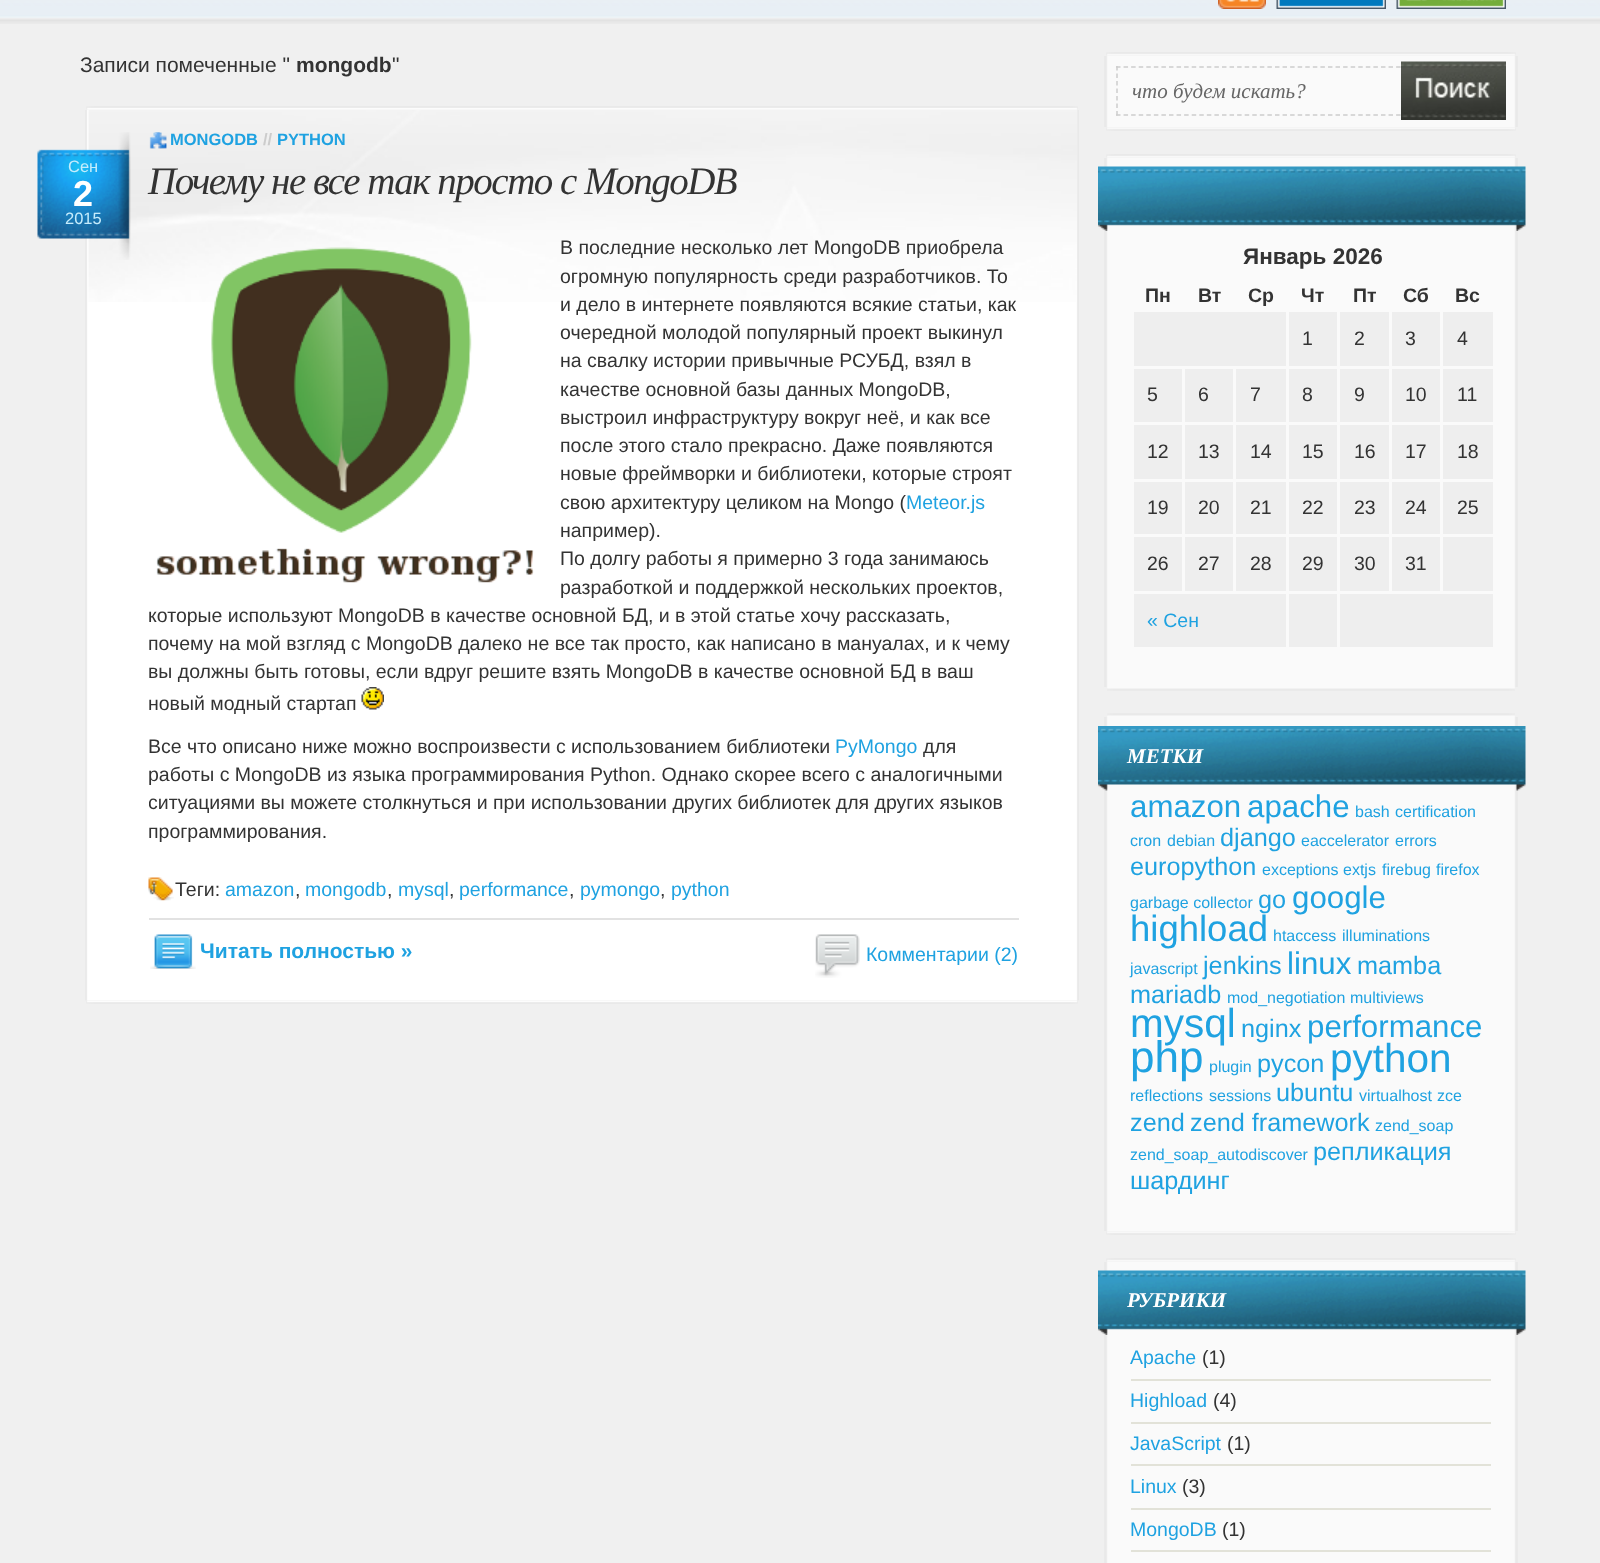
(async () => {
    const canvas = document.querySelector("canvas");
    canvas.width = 1600;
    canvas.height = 1563;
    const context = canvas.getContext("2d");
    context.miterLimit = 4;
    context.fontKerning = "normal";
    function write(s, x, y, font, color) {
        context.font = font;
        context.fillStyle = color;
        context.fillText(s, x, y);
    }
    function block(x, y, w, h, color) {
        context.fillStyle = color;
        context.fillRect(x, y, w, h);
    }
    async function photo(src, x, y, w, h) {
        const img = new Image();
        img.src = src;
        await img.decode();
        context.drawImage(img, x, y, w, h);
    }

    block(0, 0, 1600, 1563, "rgb(240, 240, 240)");
    await photo("media/1.png", 0, 0, 1600, 24);
    await photo("media/2.png", 1218, 0, 48, 9);
    await photo("media/3.png", 1276, 0, 110, 9);
    await photo("media/4.png", 1396, 0, 110, 9);
    write("Записи помеченные \"", 80, 72, "21px Liberation Sans", "rgb(51, 51, 51)");
    write("mongodb", 296, 72, "bold 21px Liberation Sans", "rgb(51, 51, 51)");
    write("\"", 392, 72, "21px Liberation Sans", "rgb(51, 51, 51)");
    await photo("media/5.png", 86, 106, 992, 4);
    await photo("media/6.png", 85, 110, 994, 891);
    await photo("media/7.png", 88, 110, 989, 192);
    await photo("media/8.png", 149, 132, 18, 17);
    write("MONGODB", 170, 145, "bold 16.5px Liberation Sans", "rgb(31, 162, 225)");
    write("//", 263, 145, "bold 16.5px Liberation Sans", "rgb(204, 204, 204)");
    write("PYTHON", 277, 145, "bold 16.5px Liberation Sans", "rgb(31, 162, 225)");
    await photo("media/9.png", 37, 132, 94, 128);
    write("Сен", 68, 172, "16.5px Liberation Sans", "rgb(197, 236, 252)");
    write("2", 73, 206, "bold 36px Liberation Sans", "rgb(255, 255, 255)");
    write("2015", 65, 224, "16.5px Liberation Sans", "rgb(197, 236, 252)");
    context.letterSpacing = "-1.5px";
    write("Почему не все так просто с MongoDB", 148, 194, "italic 39px Liberation Serif", "rgb(51, 51, 51)");
    await photo("media/10.png", 156, 247, 378, 336);
    context.letterSpacing = "0px";
    write("В последние несколько лет MongoDB приобрела", 560, 254, "19.5px Liberation Sans", "rgb(51, 51, 51)");
    write("огромную популярность среди разработчиков. То", 560, 283, "19.5px Liberation Sans", "rgb(51, 51, 51)");
    write("и дело в интернете появляются всякие статьи, как", 560, 311, "19.5px Liberation Sans", "rgb(51, 51, 51)");
    write("очередной молодой популярный проект выкинул", 560, 339, "19.5px Liberation Sans", "rgb(51, 51, 51)");
    write("на свалку истории привычные РСУБД, взял в", 560, 367, "19.5px Liberation Sans", "rgb(51, 51, 51)");
    write("качестве основной базы данных MongoDB,", 560, 396, "19.5px Liberation Sans", "rgb(51, 51, 51)");
    write("выстроил инфраструктуру вокруг неё, и как все", 560, 424, "19.5px Liberation Sans", "rgb(51, 51, 51)");
    write("после этого стало прекрасно. Даже появляются", 560, 452, "19.5px Liberation Sans", "rgb(51, 51, 51)");
    write("новые фреймворки и библиотеки, которые строят", 560, 480, "19.5px Liberation Sans", "rgb(51, 51, 51)");
    write("свою архитектуру целиком на Mongo (", 560, 509, "19.5px Liberation Sans", "rgb(51, 51, 51)");
    write("Meteor.js", 906, 509, "19.5px Liberation Sans", "rgb(31, 162, 225)");
    write("например).", 560, 537, "19.5px Liberation Sans", "rgb(51, 51, 51)");
    write("По долгу работы я примерно 3 года занимаюсь", 560, 565, "19.5px Liberation Sans", "rgb(51, 51, 51)");
    write("разработкой и поддержкой нескольких проектов,", 560, 594, "19.5px Liberation Sans", "rgb(51, 51, 51)");
    write("которые используют MongoDB в качестве основной БД, и в этой статье хочу рассказать,", 148, 622, "19.5px Liberation Sans", "rgb(51, 51, 51)");
    write("почему на мой взгляд с MongoDB далеко не все так просто, как написано в мануалах, и к чему", 148, 650, "19.5px Liberation Sans", "rgb(51, 51, 51)");
    write("вы должны быть готовы, если вдруг решите взять MongoDB в качестве основной БД в ваш", 148, 678, "19.5px Liberation Sans", "rgb(51, 51, 51)");
    write("новый модный стартап", 148, 710, "19.5px Liberation Sans", "rgb(51, 51, 51)");
    await photo("media/11.png", 361, 687, 23, 23);
    write("Все что описано ниже можно воспроизвести с использованием библиотеки", 148, 753, "19.5px Liberation Sans", "rgb(51, 51, 51)");
    write("PyMongo", 835, 753, "19.5px Liberation Sans", "rgb(31, 162, 225)");
    write("для", 923, 753, "19.5px Liberation Sans", "rgb(51, 51, 51)");
    write("работы с MongoDB из языка программирования Python. Однако скорее всего с аналогичными", 148, 781, "19.5px Liberation Sans", "rgb(51, 51, 51)");
    context.save();
    context.beginPath();
    context.rect(149, 734, 870, 112);
    context.clip();
    write("ситуациями вы можете столкнуться и при использовании других библиотек для других языков", 148, 809, "19.5px Liberation Sans", "rgb(51, 51, 51)");
    context.restore();
    write("программирования.", 148, 838, "19.5px Liberation Sans", "rgb(51, 51, 51)");
    await photo("media/12.png", 148, 877, 26, 24);
    write("Теги:", 175, 896, "19.5px Liberation Sans", "rgb(51, 51, 51)");
    write("amazon", 225, 896, "19.5px Liberation Sans", "rgb(31, 162, 225)");
    write(",", 295, 896, "19.5px Liberation Sans", "rgb(51, 51, 51)");
    write("mongodb", 305, 896, "19.5px Liberation Sans", "rgb(31, 162, 225)");
    write(",", 387, 896, "19.5px Liberation Sans", "rgb(51, 51, 51)");
    write("mysql", 398, 896, "19.5px Liberation Sans", "rgb(31, 162, 225)");
    write(",", 449, 896, "19.5px Liberation Sans", "rgb(51, 51, 51)");
    write("performance", 459, 896, "19.5px Liberation Sans", "rgb(31, 162, 225)");
    write(",", 569, 896, "19.5px Liberation Sans", "rgb(51, 51, 51)");
    write("pymongo", 580, 896, "19.5px Liberation Sans", "rgb(31, 162, 225)");
    write(",", 660, 896, "19.5px Liberation Sans", "rgb(51, 51, 51)");
    write("python", 671, 896, "19.5px Liberation Sans", "rgb(31, 162, 225)");
    block(149, 918, 870, 2, "rgb(226, 226, 226)");
    await photo("media/13.png", 150, 934, 46, 35);
    write("Читать полностью »", 200, 958, "bold 21px Liberation Sans", "rgb(31, 162, 225)");
    await photo("media/14.png", 815, 934, 45, 44);
    write("Комментарии (2)", 866, 961, "19.5px Liberation Sans", "rgb(31, 162, 225)");
    await photo("media/15.png", 86, 1001, 992, 3);
    await photo("media/16.png", 1106, 52, 410, 4);
    await photo("media/17.png", 1104, 56, 414, 71);
    context.beginPath();
    context.moveTo(1116, 67);
    context.lineTo(1401, 67);
    context.strokeStyle = "rgb(205, 205, 205)";
    context.lineWidth = 1.5;
    context.setLineDash([4.5, 3.07]);
    context.stroke();
    context.beginPath();
    context.moveTo(1116, 115);
    context.lineTo(1401, 115);
    context.stroke();
    context.beginPath();
    context.moveTo(1117, 66);
    context.lineTo(1117, 115.5);
    context.setLineDash([4.5, 3]);
    context.stroke();
    context.save();
    context.beginPath();
    context.rect(1133, 80, 253, 24);
    context.clip();
    write("что будем искать?", 1132, 98, "italic 21px Liberation Serif", "rgb(102, 102, 102)");
    context.restore();
    await photo("media/18.png", 1401, 61, 105, 59);
    await photo("media/19.png", 1106, 127, 410, 4);
    await photo("media/16.png", 1106, 154, 410, 4);
    await photo("media/20.png", 1104, 158, 414, 529);
    await photo("media/21.png", 1098, 166, 428, 65);
    write("Январь 2026", 1243, 264, "bold 22.5px Liberation Sans", "rgb(51, 51, 51)");
    write("Пн", 1145, 302, "bold 19.5px Liberation Sans", "rgb(51, 51, 51)");
    write("Вт", 1198, 302, "bold 19.5px Liberation Sans", "rgb(51, 51, 51)");
    write("Ср", 1248, 302, "bold 19.5px Liberation Sans", "rgb(51, 51, 51)");
    write("Чт", 1301, 302, "bold 19.5px Liberation Sans", "rgb(51, 51, 51)");
    write("Пт", 1353, 302, "bold 19.5px Liberation Sans", "rgb(51, 51, 51)");
    write("Сб", 1403, 302, "bold 19.5px Liberation Sans", "rgb(51, 51, 51)");
    write("Вс", 1455, 302, "bold 19.5px Liberation Sans", "rgb(51, 51, 51)");
    block(1134, 312, 152, 54, "rgb(238, 238, 238)");
    block(1289, 312, 48, 54, "rgb(238, 238, 238)");
    write("1", 1302, 345, "19.5px Liberation Sans", "rgb(51, 51, 51)");
    block(1340, 312, 49, 54, "rgb(238, 238, 238)");
    write("2", 1354, 345, "19.5px Liberation Sans", "rgb(51, 51, 51)");
    block(1392, 312, 48, 54, "rgb(238, 238, 238)");
    write("3", 1405, 345, "19.5px Liberation Sans", "rgb(51, 51, 51)");
    block(1443, 312, 50, 54, "rgb(238, 238, 238)");
    write("4", 1457, 345, "19.5px Liberation Sans", "rgb(51, 51, 51)");
    block(1134, 369, 48, 53, "rgb(238, 238, 238)");
    write("5", 1147, 401, "19.5px Liberation Sans", "rgb(51, 51, 51)");
    block(1185, 369, 48, 53, "rgb(238, 238, 238)");
    write("6", 1198, 401, "19.5px Liberation Sans", "rgb(51, 51, 51)");
    block(1236, 369, 50, 53, "rgb(238, 238, 238)");
    write("7", 1250, 401, "19.5px Liberation Sans", "rgb(51, 51, 51)");
    block(1289, 369, 48, 53, "rgb(238, 238, 238)");
    write("8", 1302, 401, "19.5px Liberation Sans", "rgb(51, 51, 51)");
    block(1340, 369, 49, 53, "rgb(238, 238, 238)");
    write("9", 1354, 401, "19.5px Liberation Sans", "rgb(51, 51, 51)");
    block(1392, 369, 48, 53, "rgb(238, 238, 238)");
    write("10", 1405, 401, "19.5px Liberation Sans", "rgb(51, 51, 51)");
    block(1443, 369, 50, 53, "rgb(238, 238, 238)");
    write("11", 1457, 401, "19.5px Liberation Sans", "rgb(51, 51, 51)");
    block(1134, 425, 48, 54, "rgb(238, 238, 238)");
    write("12", 1147, 458, "19.5px Liberation Sans", "rgb(51, 51, 51)");
    block(1185, 425, 48, 54, "rgb(238, 238, 238)");
    write("13", 1198, 458, "19.5px Liberation Sans", "rgb(51, 51, 51)");
    block(1236, 425, 50, 54, "rgb(238, 238, 238)");
    write("14", 1250, 458, "19.5px Liberation Sans", "rgb(51, 51, 51)");
    block(1289, 425, 48, 54, "rgb(238, 238, 238)");
    write("15", 1302, 458, "19.5px Liberation Sans", "rgb(51, 51, 51)");
    block(1340, 425, 49, 54, "rgb(238, 238, 238)");
    write("16", 1354, 458, "19.5px Liberation Sans", "rgb(51, 51, 51)");
    block(1392, 425, 48, 54, "rgb(238, 238, 238)");
    write("17", 1405, 458, "19.5px Liberation Sans", "rgb(51, 51, 51)");
    block(1443, 425, 50, 54, "rgb(238, 238, 238)");
    write("18", 1457, 458, "19.5px Liberation Sans", "rgb(51, 51, 51)");
    block(1134, 482, 48, 52, "rgb(238, 238, 238)");
    write("19", 1147, 514, "19.5px Liberation Sans", "rgb(51, 51, 51)");
    block(1185, 482, 48, 52, "rgb(238, 238, 238)");
    write("20", 1198, 514, "19.5px Liberation Sans", "rgb(51, 51, 51)");
    block(1236, 482, 50, 52, "rgb(238, 238, 238)");
    write("21", 1250, 514, "19.5px Liberation Sans", "rgb(51, 51, 51)");
    block(1289, 482, 48, 52, "rgb(238, 238, 238)");
    write("22", 1302, 514, "19.5px Liberation Sans", "rgb(51, 51, 51)");
    block(1340, 482, 49, 52, "rgb(238, 238, 238)");
    write("23", 1354, 514, "19.5px Liberation Sans", "rgb(51, 51, 51)");
    block(1392, 482, 48, 52, "rgb(238, 238, 238)");
    write("24", 1405, 514, "19.5px Liberation Sans", "rgb(51, 51, 51)");
    block(1443, 482, 50, 52, "rgb(238, 238, 238)");
    write("25", 1457, 514, "19.5px Liberation Sans", "rgb(51, 51, 51)");
    block(1134, 537, 48, 54, "rgb(238, 238, 238)");
    write("26", 1147, 570, "19.5px Liberation Sans", "rgb(51, 51, 51)");
    block(1185, 537, 48, 54, "rgb(238, 238, 238)");
    write("27", 1198, 570, "19.5px Liberation Sans", "rgb(51, 51, 51)");
    block(1236, 537, 50, 54, "rgb(238, 238, 238)");
    write("28", 1250, 570, "19.5px Liberation Sans", "rgb(51, 51, 51)");
    block(1289, 537, 48, 54, "rgb(238, 238, 238)");
    write("29", 1302, 570, "19.5px Liberation Sans", "rgb(51, 51, 51)");
    block(1340, 537, 49, 54, "rgb(238, 238, 238)");
    write("30", 1354, 570, "19.5px Liberation Sans", "rgb(51, 51, 51)");
    block(1392, 537, 48, 54, "rgb(238, 238, 238)");
    write("31", 1405, 570, "19.5px Liberation Sans", "rgb(51, 51, 51)");
    block(1443, 537, 50, 54, "rgb(238, 238, 238)");
    block(1134, 594, 152, 53, "rgb(238, 238, 238)");
    write("« Сен", 1147, 627, "19.5px Liberation Sans", "rgb(31, 162, 225)");
    block(1289, 594, 48, 53, "rgb(238, 238, 238)");
    block(1340, 594, 153, 53, "rgb(238, 238, 238)");
    await photo("media/22.png", 1107, 687, 408, 4);
    await photo("media/23.png", 1107, 713, 408, 4);
    await photo("media/24.png", 1104, 717, 414, 514);
    await photo("media/25.png", 1098, 726, 428, 65);
    write("МЕТКИ", 1127, 763, "italic bold 21px Liberation Serif", "rgb(255, 255, 255)");
    write("amazon", 1130, 817, "31.25px Liberation Sans", "rgb(31, 162, 225)");
    write("apache", 1247, 817, "31.25px Liberation Sans", "rgb(31, 162, 225)");
    write("bash", 1355, 817, "16px Liberation Sans", "rgb(31, 162, 225)");
    write("certification", 1395, 817, "16px Liberation Sans", "rgb(31, 162, 225)");
    write("cron", 1130, 846, "16px Liberation Sans", "rgb(31, 162, 225)");
    write("debian", 1167, 846, "16px Liberation Sans", "rgb(31, 162, 225)");
    write("django", 1220, 846, "25.25px Liberation Sans", "rgb(31, 162, 225)");
    write("eaccelerator", 1301, 846, "16px Liberation Sans", "rgb(31, 162, 225)");
    write("errors", 1395, 846, "16px Liberation Sans", "rgb(31, 162, 225)");
    write("europython", 1130, 875, "25.25px Liberation Sans", "rgb(31, 162, 225)");
    write("exceptions", 1262, 875, "16px Liberation Sans", "rgb(31, 162, 225)");
    write("extjs", 1343, 875, "16px Liberation Sans", "rgb(31, 162, 225)");
    write("firebug", 1382, 875, "16px Liberation Sans", "rgb(31, 162, 225)");
    write("firefox", 1436, 875, "16px Liberation Sans", "rgb(31, 162, 225)");
    write("garbage collector", 1130, 908, "16px Liberation Sans", "rgb(31, 162, 225)");
    write("go", 1258, 908, "25.25px Liberation Sans", "rgb(31, 162, 225)");
    write("google", 1292, 908, "31.25px Liberation Sans", "rgb(31, 162, 225)");
    write("highload", 1130, 941, "36.5px Liberation Sans", "rgb(31, 162, 225)");
    write("htaccess", 1273, 941, "16px Liberation Sans", "rgb(31, 162, 225)");
    write("illuminations", 1342, 941, "16px Liberation Sans", "rgb(31, 162, 225)");
    write("javascript", 1130, 974, "16px Liberation Sans", "rgb(31, 162, 225)");
    write("jenkins", 1203, 974, "25.25px Liberation Sans", "rgb(31, 162, 225)");
    write("linux", 1287, 974, "31.25px Liberation Sans", "rgb(31, 162, 225)");
    write("mamba", 1357, 974, "25.25px Liberation Sans", "rgb(31, 162, 225)");
    write("mariadb", 1130, 1003, "25.25px Liberation Sans", "rgb(31, 162, 225)");
    write("mod_negotiation", 1227, 1003, "16px Liberation Sans", "rgb(31, 162, 225)");
    write("multiviews", 1350, 1003, "16px Liberation Sans", "rgb(31, 162, 225)");
    write("mysql", 1130, 1037, "40.5px Liberation Sans", "rgb(31, 162, 225)");
    write("nginx", 1241, 1037, "25.25px Liberation Sans", "rgb(31, 162, 225)");
    write("performance", 1307, 1037, "31.25px Liberation Sans", "rgb(31, 162, 225)");
    write("php", 1130, 1072, "44px Liberation Sans", "rgb(31, 162, 225)");
    write("plugin", 1209, 1072, "16px Liberation Sans", "rgb(31, 162, 225)");
    write("pycon", 1257, 1072, "25.25px Liberation Sans", "rgb(31, 162, 225)");
    write("python", 1330, 1072, "40.5px Liberation Sans", "rgb(31, 162, 225)");
    write("reflections", 1130, 1101, "16px Liberation Sans", "rgb(31, 162, 225)");
    write("sessions", 1209, 1101, "16px Liberation Sans", "rgb(31, 162, 225)");
    write("ubuntu", 1276, 1101, "25.25px Liberation Sans", "rgb(31, 162, 225)");
    write("virtualhost", 1359, 1101, "16px Liberation Sans", "rgb(31, 162, 225)");
    write("zce", 1437, 1101, "16px Liberation Sans", "rgb(31, 162, 225)");
    write("zend", 1130, 1131, "25.25px Liberation Sans", "rgb(31, 162, 225)");
    write("zend framework", 1190, 1131, "25.25px Liberation Sans", "rgb(31, 162, 225)");
    write("zend_soap", 1375, 1131, "16px Liberation Sans", "rgb(31, 162, 225)");
    write("zend_soap_autodiscover", 1130, 1160, "16px Liberation Sans", "rgb(31, 162, 225)");
    write("репликация", 1313, 1160, "25.25px Liberation Sans", "rgb(31, 162, 225)");
    write("шардинг", 1130, 1189, "25.25px Liberation Sans", "rgb(31, 162, 225)");
    await photo("media/19.png", 1106, 1231, 410, 4);
    await photo("media/16.png", 1106, 1258, 410, 4);
    await photo("media/26.png", 1104, 1262, 414, 301);
    await photo("media/21.png", 1098, 1270, 428, 65);
    write("РУБРИКИ", 1127, 1307, "italic bold 21px Liberation Serif", "rgb(255, 255, 255)");
    block(1131, 1379, 360, 2, "rgb(226, 226, 216)");
    write("Apache", 1130, 1364, "19.5px Liberation Sans", "rgb(31, 162, 225)");
    write("(1)", 1202, 1364, "19.5px Liberation Sans", "rgb(51, 51, 51)");
    block(1131, 1422, 360, 2, "rgb(226, 226, 216)");
    write("Highload", 1130, 1407, "19.5px Liberation Sans", "rgb(31, 162, 225)");
    write("(4)", 1213, 1407, "19.5px Liberation Sans", "rgb(51, 51, 51)");
    block(1131, 1464, 360, 2, "rgb(226, 226, 216)");
    write("JavaScript", 1130, 1450, "19.5px Liberation Sans", "rgb(31, 162, 225)");
    write("(1)", 1227, 1450, "19.5px Liberation Sans", "rgb(51, 51, 51)");
    block(1131, 1508, 360, 2, "rgb(226, 226, 216)");
    write("Linux", 1130, 1493, "19.5px Liberation Sans", "rgb(31, 162, 225)");
    write("(3)", 1182, 1493, "19.5px Liberation Sans", "rgb(51, 51, 51)");
    block(1131, 1550, 360, 2, "rgb(226, 226, 216)");
    write("MongoDB", 1130, 1536, "19.5px Liberation Sans", "rgb(31, 162, 225)");
    write("(1)", 1222, 1536, "19.5px Liberation Sans", "rgb(51, 51, 51)");
})();
